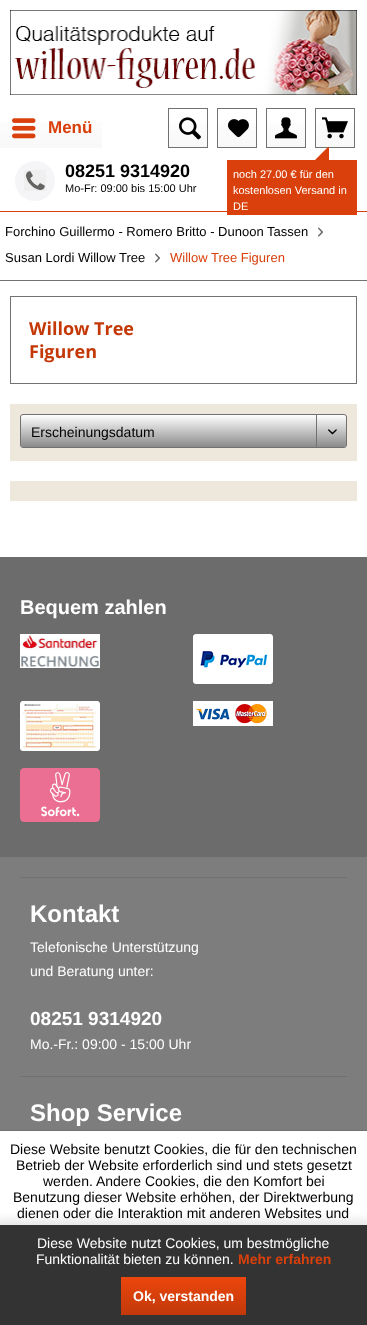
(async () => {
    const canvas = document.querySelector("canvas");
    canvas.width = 367;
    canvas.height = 1325;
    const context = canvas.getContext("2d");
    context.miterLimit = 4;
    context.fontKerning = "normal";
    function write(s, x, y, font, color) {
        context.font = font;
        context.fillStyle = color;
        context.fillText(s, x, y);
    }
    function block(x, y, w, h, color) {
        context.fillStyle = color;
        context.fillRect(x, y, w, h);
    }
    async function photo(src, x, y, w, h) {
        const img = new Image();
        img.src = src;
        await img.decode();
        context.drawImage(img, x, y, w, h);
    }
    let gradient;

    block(0, 0, 367, 1325, "rgb(255, 255, 255)");
    block(0, 211, 367, 1, "rgb(217, 64, 11)");
    await photo("media/1.png", 10, 10, 347, 85);
    gradient = context.createLinearGradient(51, 148, 51, 108);
    gradient.addColorStop(0, "rgb(248, 248, 248)");
    gradient.addColorStop(1, "rgb(255, 255, 255)");
    context.fillStyle = gradient;
    context.fillRect(0, 122, 102, 26);
    await photo("media/2.png", 12, 118, 24, 21);
    write("Menü", 48, 133, "bold 17px Liberation Sans", "rgb(217, 64, 11)");
    gradient = context.createLinearGradient(188, 147, 188, 109);
    gradient.addColorStop(0, "rgb(248, 248, 248)");
    gradient.addColorStop(1, "rgb(255, 255, 255)");
    context.fillStyle = gradient;
    context.fillRect(169, 123, 38, 24);
    context.strokeStyle = "rgb(113, 113, 113)";
    context.strokeRect(168.5, 108.5, 39, 39);
    await photo("media/3.png", 179, 117, 22, 23);
    gradient = context.createLinearGradient(237, 147, 237, 109);
    gradient.addColorStop(0, "rgb(248, 248, 248)");
    gradient.addColorStop(1, "rgb(255, 255, 255)");
    context.fillStyle = gradient;
    context.fillRect(218, 123, 38, 24);
    context.strokeRect(217.5, 108.5, 39, 39);
    await photo("media/4.png", 228, 119, 21, 19);
    gradient = context.createLinearGradient(286, 147, 286, 109);
    gradient.addColorStop(0, "rgb(248, 248, 248)");
    gradient.addColorStop(1, "rgb(255, 255, 255)");
    context.fillStyle = gradient;
    context.fillRect(267, 123, 38, 24);
    context.strokeRect(266.5, 108.5, 39, 39);
    await photo("media/5.png", 275, 117, 22, 22);
    gradient = context.createLinearGradient(335, 147, 335, 109);
    gradient.addColorStop(0, "rgb(248, 248, 248)");
    gradient.addColorStop(1, "rgb(255, 255, 255)");
    context.fillStyle = gradient;
    context.fillRect(316, 123, 38, 24);
    context.strokeRect(315.5, 108.5, 39, 39);
    await photo("media/6.png", 322, 117, 26, 22);
    context.fillStyle = "rgb(245, 245, 248)";
    context.beginPath();
    context.arc(35, 181, 20, 0, Math.PI * 2);
    context.fill();
    await photo("media/7.png", 24, 170, 22, 21);
    write("08251 9314920", 65, 177, "bold 18px Liberation Sans", "rgb(0, 0, 0)");
    write("Mo-Fr: 09:00 bis 15:00 Uhr", 65, 192, "11px Liberation Sans", "rgb(0, 0, 0)");
    block(227, 160, 130, 55, "rgb(217, 64, 11)");
    context.beginPath();
    context.moveTo(329, 167);
    context.lineTo(308, 167);
    context.lineTo(328, 147);
    context.lineTo(329, 147);
    context.closePath();
    context.fill();
    write("noch 27.00 € für den", 233, 178, "11px Liberation Sans", "rgb(255, 255, 255)");
    write("kostenlosen Versand in", 233, 194, "11px Liberation Sans", "rgb(255, 255, 255)");
    write("DE", 233, 210, "11px Liberation Sans", "rgb(255, 255, 255)");
    block(0, 280, 367, 1, "rgb(113, 113, 113)");
    write("Forchino Guillermo - Romero Britto - Dunoon Tassen", 5, 236, "13px Liberation Sans", "rgb(0, 0, 0)");
    await photo("media/8.png", 318, 227, 5, 10);
    write("Susan Lordi Willow Tree", 5, 262, "13px Liberation Sans", "rgb(0, 0, 0)");
    await photo("media/8.png", 155, 253, 5, 10);
    write("Willow Tree Figuren", 170, 262, "13px Liberation Sans", "rgb(217, 64, 11)");
    context.strokeRect(10.5, 296.5, 346, 87);
    write("Willow Tree", 29, 335, "bold 18px Open Sans", "rgb(196, 56, 6)");
    write("Figuren", 29, 358, "bold 18px Open Sans", "rgb(196, 56, 6)");
    block(10, 404, 347, 57, "rgb(238, 232, 220)");
    gradient = context.createLinearGradient(184, 415, 184, 447);
    gradient.addColorStop(0, "rgb(255, 255, 255)");
    gradient.addColorStop(1, "rgb(138, 138, 138)");
    context.fillStyle = gradient;
    context.beginPath();
    context.roundRect(21, 415, 325, 32, 2);
    context.fill();
    context.beginPath();
    context.roundRect(20.5, 414.5, 326, 33, 2.5);
    context.stroke();
    write("Erscheinungsdatum", 31, 437, "14px Liberation Sans", "rgb(0, 0, 0)");
    block(316, 415, 1, 33, "rgb(113, 113, 113)");
    await photo("media/9.png", 328, 429, 9, 6);
    block(10, 481, 347, 20, "rgb(238, 232, 220)");
    block(0, 857, 367, 273, "rgb(125, 125, 125)");
    block(0, 557, 367, 300, "rgb(108, 108, 108)");
    write("Bequem zahlen", 20, 614, "bold 20px Liberation Sans", "rgb(255, 255, 255)");
    await photo("media/10.png", 20, 634, 80, 34);
    await photo("media/11.png", 193, 634, 80, 50);
    await photo("media/12.png", 20, 701, 80, 50);
    await photo("media/13.png", 193, 701, 80, 25);
    await photo("media/14.png", 20, 768, 80, 54);
    block(20, 877, 327, 1, "rgb(113, 113, 113)");
    write("Kontakt", 30, 922, "bold 24px Liberation Sans", "rgb(255, 255, 255)");
    write("Telefonische Unterstützung", 30, 952, "14px Liberation Sans", "rgb(255, 255, 255)");
    write("und Beratung unter:", 30, 976, "14px Liberation Sans", "rgb(255, 255, 255)");
    write("08251 9314920", 30, 1025, "bold 19px Liberation Sans", "rgb(255, 255, 255)");
    write("Mo.-Fr.: 09:00 - 15:00 Uhr", 30, 1049, "14px Liberation Sans", "rgb(255, 255, 255)");
    block(20, 1076, 327, 1, "rgb(113, 113, 113)");
    write("Shop Service", 30, 1121, "bold 24px Liberation Sans", "rgb(255, 255, 255)");
    block(0, 1130, 367, 1, "rgb(113, 113, 113)");
    write("Diese Website benutzt Cookies, die für den technischen", 10, 1154, "14px Liberation Sans", "rgb(0, 0, 0)");
    write("Betrieb der Website erforderlich sind und stets gesetzt", 16, 1170, "14px Liberation Sans", "rgb(0, 0, 0)");
    write("werden. Andere Cookies, die den Komfort bei", 43, 1186, "14px Liberation Sans", "rgb(0, 0, 0)");
    write("Benutzung dieser Website erhöhen, der Direktwerbung", 13, 1202, "14px Liberation Sans", "rgb(0, 0, 0)");
    write("dienen oder die Interaktion mit anderen Websites und", 17, 1218, "14px Liberation Sans", "rgb(0, 0, 0)");
    context.fillStyle = "rgba(0, 0, 0, 0.1)";
    context.filter = "blur(5px)";
    context.beginPath();
    context.rect(-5, 1220, 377, 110);
    context.fill();
    context.filter = "none";
    block(0, 1225, 367, 100, "rgb(51, 51, 51)");
    write("Diese Website nutzt Cookies, um bestmögliche", 37, 1248, "14px Liberation Sans", "rgb(255, 255, 255)");
    write("Funktionalität bieten zu können.", 36, 1264, "14px Liberation Sans", "rgb(255, 255, 255)");
    write("Mehr erfahren", 238, 1264, "bold 14px Liberation Sans", "rgb(217, 64, 11)");
    gradient = context.createLinearGradient(184, 1277, 184, 1315);
    gradient.addColorStop(0, "rgb(236, 70, 12)");
    gradient.addColorStop(1, "rgb(193, 57, 10)");
    context.fillStyle = gradient;
    context.fillRect(121, 1277, 125, 38);
    write("Ok, verstanden", 133, 1301, "bold 14px Liberation Sans", "rgb(255, 255, 255)");
})();
